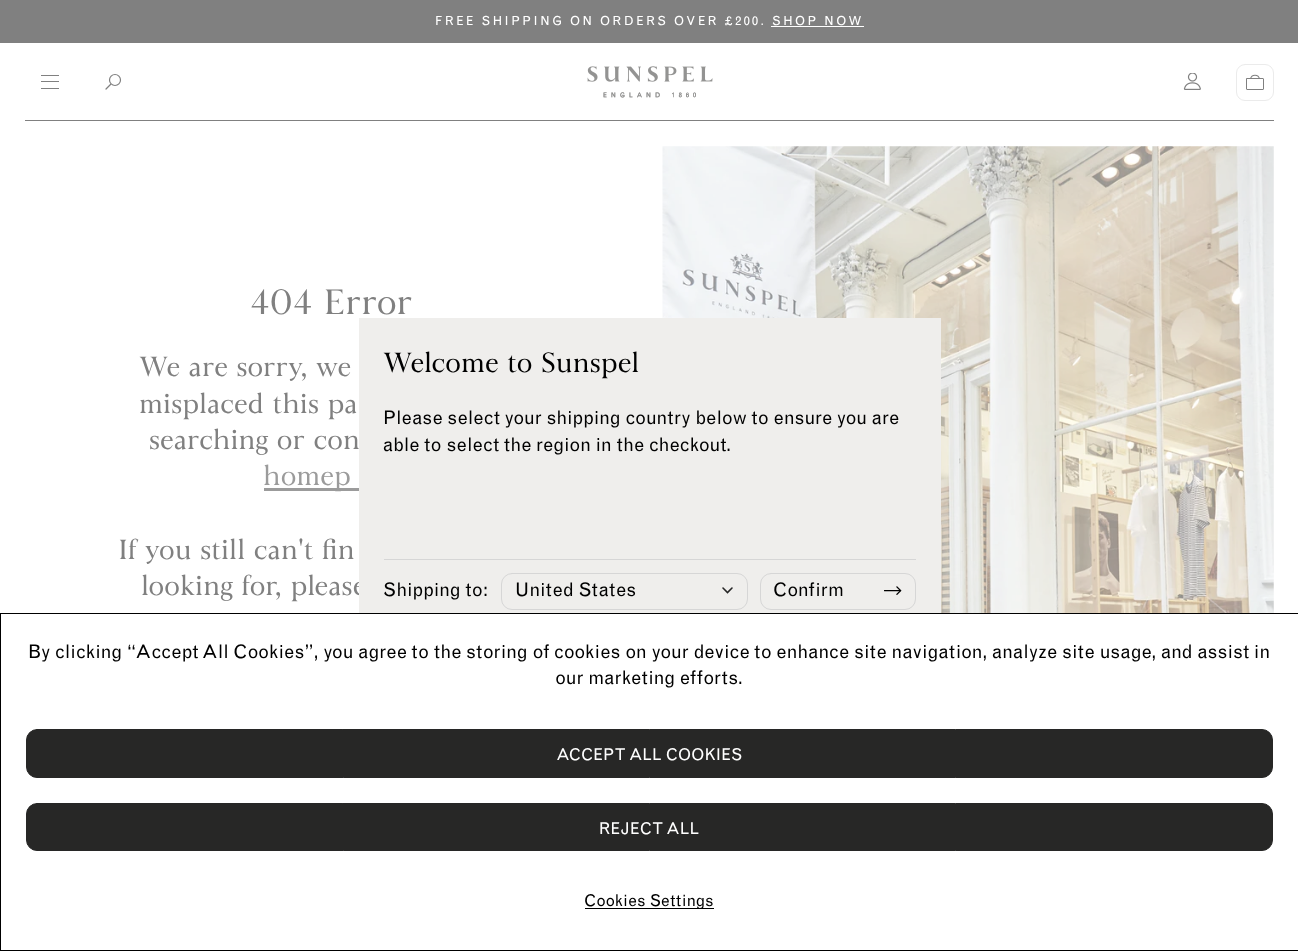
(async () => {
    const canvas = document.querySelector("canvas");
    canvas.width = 1298;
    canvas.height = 951;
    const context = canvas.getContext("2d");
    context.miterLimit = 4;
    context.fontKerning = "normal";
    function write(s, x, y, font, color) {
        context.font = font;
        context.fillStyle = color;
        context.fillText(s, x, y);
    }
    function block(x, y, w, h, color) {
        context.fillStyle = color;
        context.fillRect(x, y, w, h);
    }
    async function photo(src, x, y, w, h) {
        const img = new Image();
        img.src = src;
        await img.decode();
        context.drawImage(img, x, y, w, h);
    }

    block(0, 0, 1298, 951, "rgb(255, 255, 255)");
    block(0, 0, 1298, 43, "rgb(128, 128, 128)");
    context.letterSpacing = "2.5px";
    write("FREE SHIPPING ON ORDERS OVER £200. SHOP NOW", 435, 25, "500 12.5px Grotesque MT", "rgb(255, 255, 255)");
    block(771, 26, 93, 1, "rgb(255, 255, 255)");
    block(25, 120, 1249, 1, "rgb(128, 128, 128)");
    block(41, 75, 18, 1, "rgb(128, 128, 128)");
    block(41, 81, 18, 1, "rgb(128, 128, 128)");
    block(41, 88, 18, 1, "rgb(128, 128, 128)");
    context.beginPath();
    context.arc(115, 80, 5.5, 0, Math.PI * 2);
    context.strokeStyle = "rgb(128, 128, 128)";
    context.lineWidth = 1.2;
    context.stroke();
    context.beginPath();
    context.moveTo(110.5, 84.5);
    context.lineTo(106, 89);
    context.lineCap = "round";
    context.lineJoin = "bevel";
    context.stroke();
    await photo("media/1.png", 587, 66, 126, 32);
    await photo("media/2.png", 1183, 73, 18, 17);
    context.beginPath();
    context.roundRect(1236.5, 64.5, 37, 36, 8.5);
    context.strokeStyle = "rgb(235, 235, 235)";
    context.lineWidth = 1;
    context.lineJoin = "miter";
    context.stroke();
    context.beginPath();
    context.roundRect(1246.5, 78.5, 17, 11, 0.5);
    context.strokeStyle = "rgb(128, 128, 128)";
    context.stroke();
    context.beginPath();
    context.moveTo(1250.5, 79);
    context.bezierCurveTo(1251.5, 74, 1258.5, 74, 1259.5, 79);
    context.lineWidth = 1.2;
    context.lineCap = "butt";
    context.stroke();
    context.letterSpacing = "0px";
    write("404 Error", 250, 314, "35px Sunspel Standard", "rgb(128, 128, 128)");
    write("We are sorry, we", 139, 376, "27.5px Sunspel Standard", "rgb(128, 128, 128)");
    write("misplaced this pa", 139, 413, "27.5px Sunspel Standard", "rgb(128, 128, 128)");
    write("searching or con", 149, 449, "27.5px Sunspel Standard", "rgb(128, 128, 128)");
    block(264, 488, 95, 3, "rgb(155, 155, 155)");
    write("homep", 263, 485, "27.5px Sunspel Standard", "rgb(155, 155, 155)");
    write("If you still can't fin", 118, 559, "27.5px Sunspel Standard", "rgb(128, 128, 128)");
    write("looking for, please", 141, 595, "27.5px Sunspel Standard", "rgb(128, 128, 128)");
    await photo("media/3.png", 662, 146, 612, 467);
    block(359, 318, 582, 295, "rgb(239, 238, 236)");
    write("Welcome to Sunspel", 383, 372, "27.5px Sunspel Standard", "rgb(0, 0, 0)");
    context.letterSpacing = "0.12px";
    write("Please select your shipping country below to ensure you are", 383, 424, "500 18.75px Grotesque MT", "rgb(0, 0, 0)");
    write("able to select the region in the checkout.", 383, 451, "500 18.75px Grotesque MT", "rgb(0, 0, 0)");
    block(384, 559, 532, 1, "rgb(214, 214, 214)");
    write("Shipping to:", 383, 596, "500 18.75px Grotesque MT", "rgb(0, 0, 0)");
    context.beginPath();
    context.moveTo(723, 588);
    context.lineTo(727.5, 592.5);
    context.lineTo(732, 588);
    context.strokeStyle = "rgb(38, 38, 38)";
    context.lineWidth = 1.6;
    context.lineCap = "round";
    context.stroke();
    context.beginPath();
    context.roundRect(501.5, 573.5, 246, 36, 10.5);
    context.strokeStyle = "rgb(214, 214, 214)";
    context.lineWidth = 1;
    context.stroke();
    write("United States", 515, 596, "500 18.75px Grotesque MT", "rgb(0, 0, 0)");
    context.beginPath();
    context.roundRect(760.5, 573.5, 155, 36, 10.5);
    context.stroke();
    write("Confirm", 773, 596, "500 18.75px Grotesque MT", "rgb(0, 0, 0)");
    await photo("media/4.png", 884, 586, 18, 9);
    context.strokeStyle = "rgb(0, 0, 0)";
    context.strokeRect(0.5, 613.5, 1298, 337);
    write("By clicking “Accept All Cookies”, you agree to the storing of cookies on your device to enhance site navigation, analyze site usage, and assist in", 28, 658, "500 18.75px Grotesque MT", "rgb(0, 0, 0)");
    write("our marketing efforts.", 555, 684, "500 18.75px Grotesque MT", "rgb(0, 0, 0)");
    context.fillStyle = "rgb(39, 39, 38)";
    context.beginPath();
    context.roundRect(26.5, 729.5, 1246, 48, 10.5);
    context.fill();
    context.strokeStyle = "rgb(39, 39, 38)";
    context.stroke();
    context.letterSpacing = "0.1px";
    write("ACCEPT ALL COOKIES", 556, 760, "500 16.25px Grotesque MT", "rgb(255, 255, 255)");
    context.fillStyle = "rgb(39, 39, 38)";
    context.beginPath();
    context.roundRect(26.5, 803.5, 1246, 47, 10.5);
    context.fill();
    context.stroke();
    write("REJECT ALL", 599, 834, "500 16.25px Grotesque MT", "rgb(255, 255, 255)");
    block(585, 908, 129, 1, "rgb(0, 0, 0)");
    write("Cookies Settings", 584, 906, "500 16.25px Grotesque MT", "rgb(0, 0, 0)");
})();
